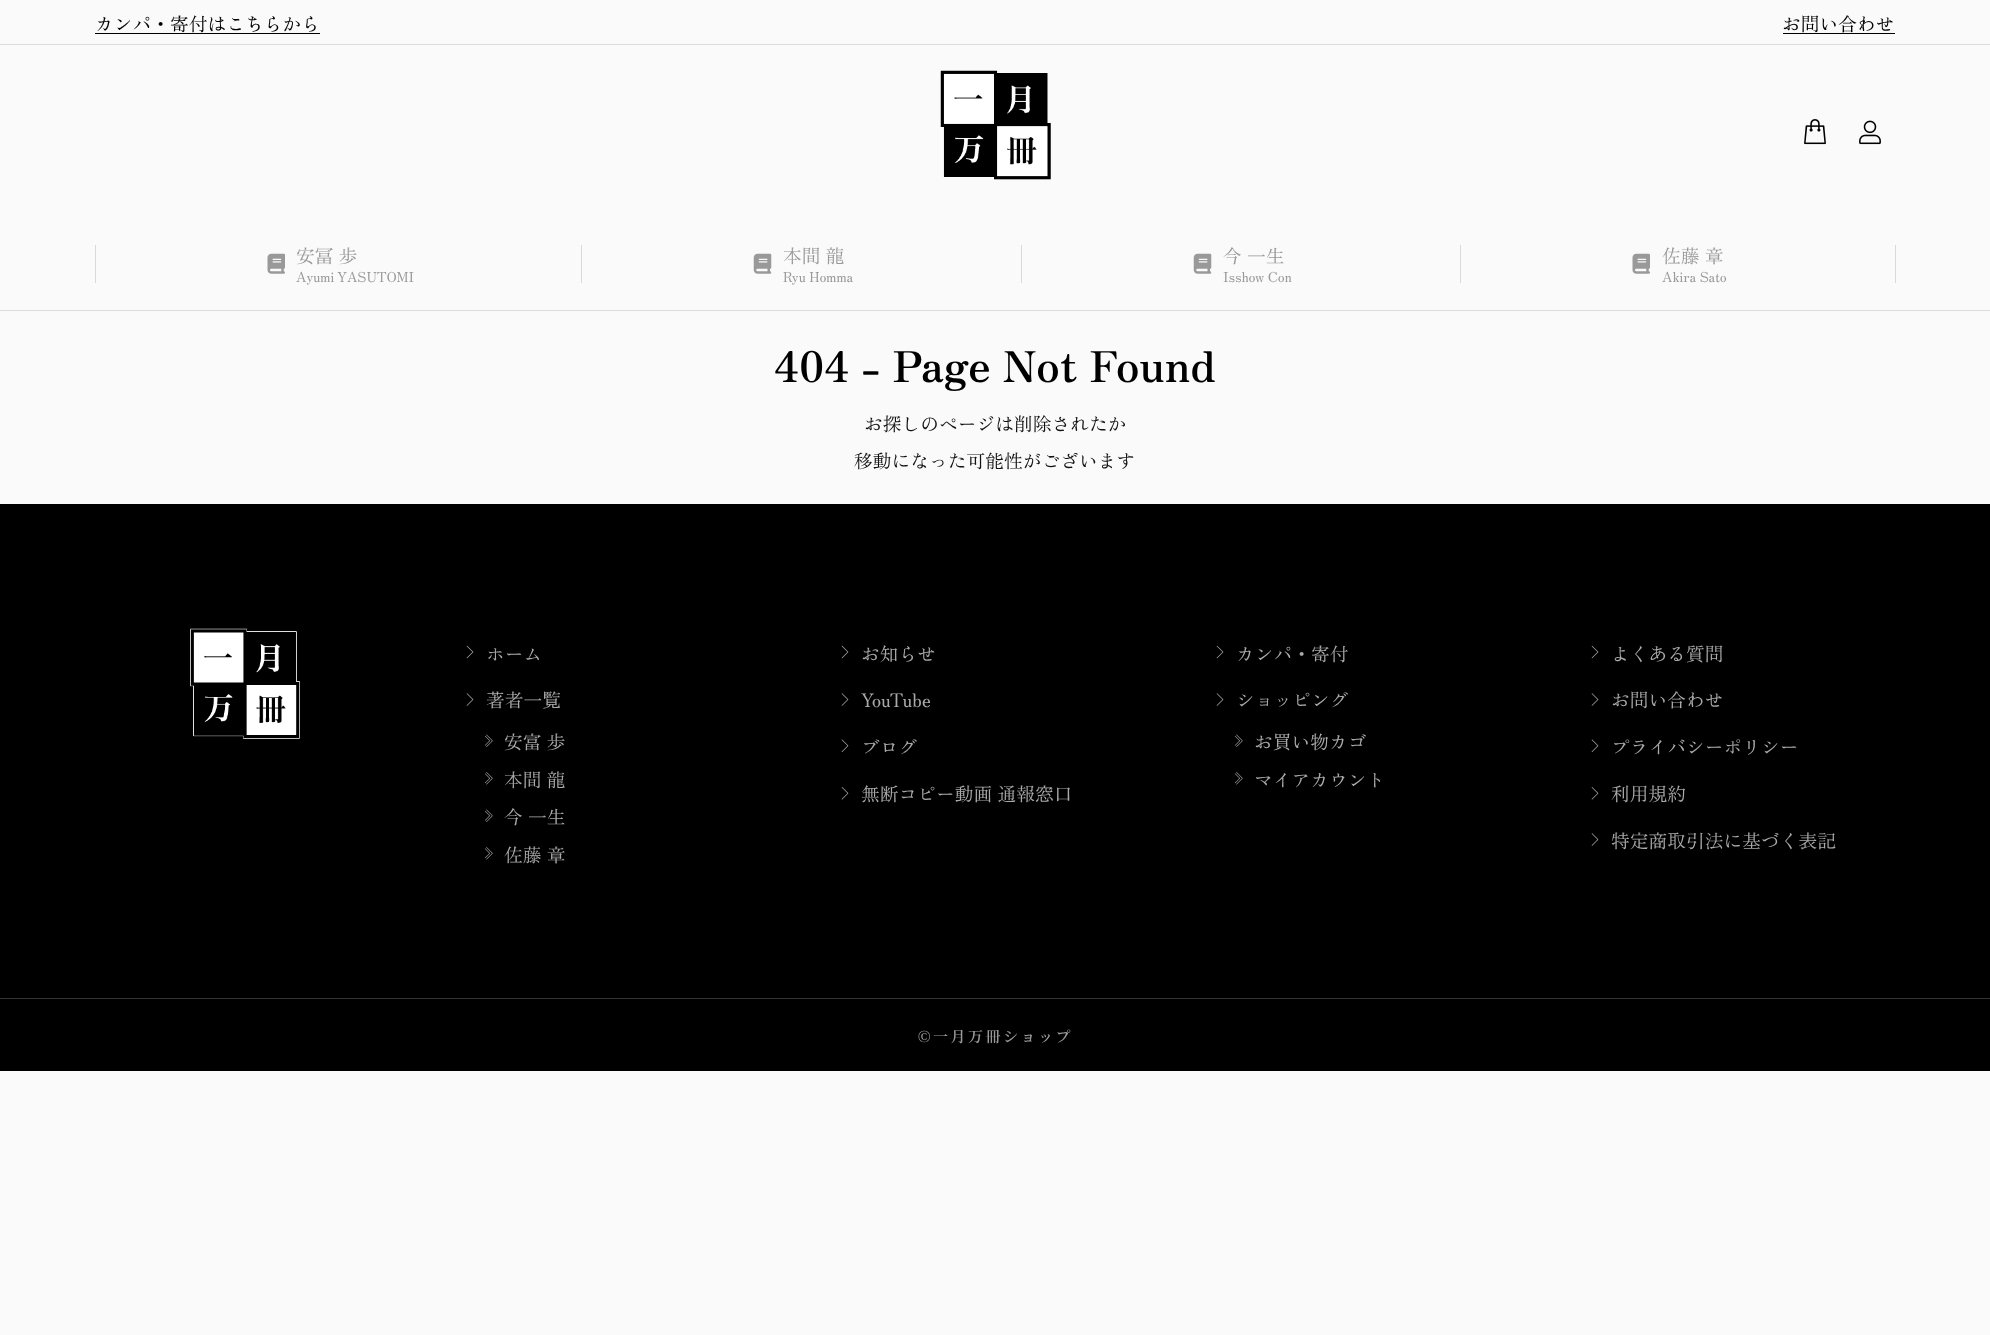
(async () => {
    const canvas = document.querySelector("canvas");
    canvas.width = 1990;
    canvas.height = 1335;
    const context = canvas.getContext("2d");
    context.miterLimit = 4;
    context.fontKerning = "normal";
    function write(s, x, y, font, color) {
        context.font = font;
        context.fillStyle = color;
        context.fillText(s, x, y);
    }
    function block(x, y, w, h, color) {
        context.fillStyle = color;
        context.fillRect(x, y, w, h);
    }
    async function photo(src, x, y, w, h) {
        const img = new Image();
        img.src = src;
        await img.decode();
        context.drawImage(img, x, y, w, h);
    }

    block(0, 0, 1990, 1335, "rgb(250, 250, 250)");
    block(0, 310, 1990, 1, "rgb(221, 221, 221)");
    write("カンパ・寄付はこちらから", 95, 31, "18.75px Zen Old Mincho", "rgb(0, 0, 0)");
    block(95, 33, 225, 1, "rgb(0, 0, 0)");
    write("お問い合わせ", 1782, 31, "18.75px Zen Old Mincho", "rgb(0, 0, 0)");
    block(1783, 33, 112, 1, "rgb(0, 0, 0)");
    block(0, 44, 1990, 1, "rgb(220, 220, 220)");
    await photo("media/1.png", 940, 70, 111, 110);
    await photo("media/2.png", 1804, 119, 22, 26);
    await photo("media/3.png", 1859, 120, 22, 25);
    block(95, 245, 1, 38, "rgb(217, 217, 217)");
    await photo("media/4.png", 267, 253, 18, 21);
    write("安冨 歩", 296, 263, "18.75px Zen Old Mincho", "rgb(153, 153, 153)");
    context.wordSpacing = "-1px";
    write("Ayumi YASUTOMI", 296, 282, "13.75px Zen Old Mincho", "rgb(153, 153, 153)");
    block(581, 245, 1, 38, "rgb(217, 217, 217)");
    await photo("media/5.png", 753, 253, 19, 21);
    context.wordSpacing = "0px";
    write("本間 龍", 783, 263, "18.75px Zen Old Mincho", "rgb(153, 153, 153)");
    write("Ryu Homma", 783, 282, "13.75px Zen Old Mincho", "rgb(153, 153, 153)");
    block(1021, 245, 1, 38, "rgb(217, 217, 217)");
    await photo("media/5.png", 1193, 253, 19, 21);
    write("今 一生", 1223, 263, "18.75px Zen Old Mincho", "rgb(153, 153, 153)");
    write("Isshow Con", 1223, 282, "13.75px Zen Old Mincho", "rgb(153, 153, 153)");
    block(1460, 245, 1, 38, "rgb(217, 217, 217)");
    await photo("media/4.png", 1632, 253, 18, 21);
    write("佐藤 章", 1662, 263, "18.75px Zen Old Mincho", "rgb(153, 153, 153)");
    write("Akira Sato", 1662, 282, "13.75px Zen Old Mincho", "rgb(153, 153, 153)");
    block(1895, 245, 1, 38, "rgb(217, 217, 217)");
    write("404 - Page Not Found", 774, 382, "900 42.5px Zen Old Mincho", "rgb(0, 0, 0)");
    write("お探しのページは削除されたか", 864, 431, "18.75px Zen Old Mincho", "rgb(17, 17, 17)");
    write("移動になった可能性がございます", 854, 468, "18.75px Zen Old Mincho", "rgb(17, 17, 17)");
    block(0, 504, 1990, 494, "rgb(0, 0, 0)");
    await photo("media/6.png", 190, 628, 110, 111);
    await photo("media/7.png", 466, 645, 8, 14);
    write("ホーム", 486, 661, "18.75px Zen Old Mincho", "rgb(170, 170, 170)");
    await photo("media/8.png", 466, 693, 8, 13);
    write("著者一覧", 486, 707, "18.75px Zen Old Mincho", "rgb(170, 170, 170)");
    await photo("media/9.png", 484, 734, 9, 13);
    write("安富 歩", 504, 749, "18.75px Zen Old Mincho", "rgb(170, 170, 170)");
    await photo("media/10.png", 484, 772, 9, 13);
    write("本間 龍", 504, 787, "18.75px Zen Old Mincho", "rgb(170, 170, 170)");
    await photo("media/9.png", 484, 809, 9, 13);
    write("今 一生", 504, 824, "18.75px Zen Old Mincho", "rgb(170, 170, 170)");
    await photo("media/10.png", 484, 847, 9, 13);
    write("佐藤 章", 504, 862, "18.75px Zen Old Mincho", "rgb(170, 170, 170)");
    await photo("media/7.png", 841, 645, 8, 14);
    write("お知らせ", 861, 661, "18.75px Zen Old Mincho", "rgb(170, 170, 170)");
    await photo("media/8.png", 841, 693, 8, 13);
    write("YouTube", 861, 707, "18.75px Zen Old Mincho", "rgb(170, 170, 170)");
    await photo("media/11.png", 841, 739, 8, 13);
    write("ブログ", 861, 754, "18.75px Zen Old Mincho", "rgb(170, 170, 170)");
    await photo("media/12.png", 841, 787, 8, 13);
    write("無断コピー動画 通報窓口", 861, 801, "18.75px Zen Old Mincho", "rgb(170, 170, 170)");
    await photo("media/7.png", 1216, 645, 8, 14);
    write("カンパ・寄付", 1236, 661, "18.75px Zen Old Mincho", "rgb(170, 170, 170)");
    await photo("media/8.png", 1216, 693, 8, 13);
    write("ショッピング", 1236, 707, "18.75px Zen Old Mincho", "rgb(170, 170, 170)");
    await photo("media/9.png", 1234, 734, 9, 13);
    write("お買い物カゴ", 1254, 749, "18.75px Zen Old Mincho", "rgb(170, 170, 170)");
    await photo("media/10.png", 1234, 772, 9, 13);
    write("マイアカウント", 1254, 787, "18.75px Zen Old Mincho", "rgb(170, 170, 170)");
    await photo("media/7.png", 1591, 645, 8, 14);
    write("よくある質問", 1611, 661, "18.75px Zen Old Mincho", "rgb(170, 170, 170)");
    await photo("media/8.png", 1591, 693, 8, 13);
    write("お問い合わせ", 1611, 707, "18.75px Zen Old Mincho", "rgb(170, 170, 170)");
    await photo("media/11.png", 1591, 739, 8, 13);
    write("プライバシーポリシー", 1611, 754, "18.75px Zen Old Mincho", "rgb(170, 170, 170)");
    await photo("media/12.png", 1591, 787, 8, 13);
    write("利用規約", 1611, 801, "18.75px Zen Old Mincho", "rgb(170, 170, 170)");
    await photo("media/8.png", 1591, 833, 8, 13);
    write("特定商取引法に基づく表記", 1611, 848, "18.75px Zen Old Mincho", "rgb(170, 170, 170)");
    block(0, 999, 1990, 72, "rgb(0, 0, 0)");
    block(0, 998, 1990, 1, "rgb(51, 51, 51)");
    context.letterSpacing = "2.5px";
    write("©一月万冊ショップ", 918, 1042, "600 15px Noto Serif JP", "rgb(153, 153, 153)");
})();
